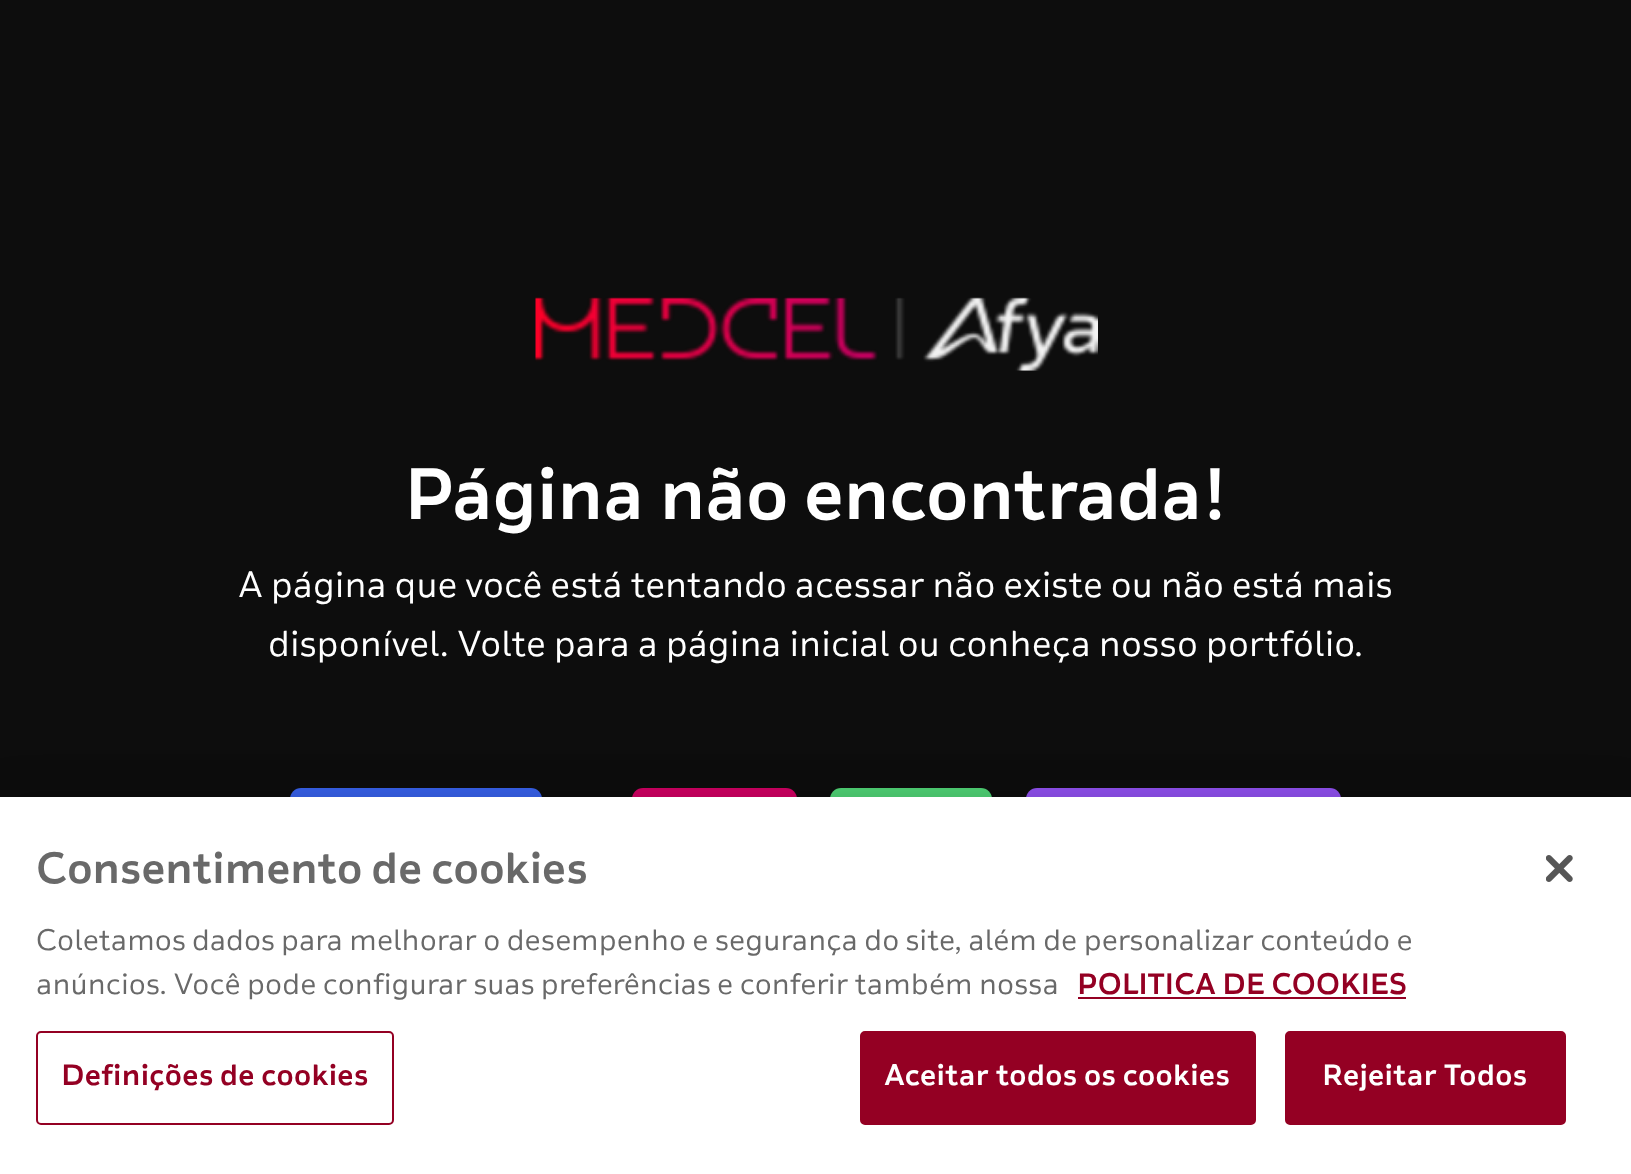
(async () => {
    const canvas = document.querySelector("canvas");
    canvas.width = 1631;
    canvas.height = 1174;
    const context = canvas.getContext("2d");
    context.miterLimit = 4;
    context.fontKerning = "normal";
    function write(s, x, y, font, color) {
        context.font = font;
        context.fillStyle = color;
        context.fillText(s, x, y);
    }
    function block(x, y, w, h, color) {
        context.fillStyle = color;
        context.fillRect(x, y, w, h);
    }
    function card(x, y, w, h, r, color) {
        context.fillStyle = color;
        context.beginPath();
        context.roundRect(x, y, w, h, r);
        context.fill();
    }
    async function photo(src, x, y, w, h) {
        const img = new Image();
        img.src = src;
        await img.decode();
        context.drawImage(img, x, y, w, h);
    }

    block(0, 0, 1631, 1174, "rgb(13, 13, 13)");
    await photo("media/1.png", 535, 297, 563, 74);
    write("Página não encontrada!", 404, 519, "bold 72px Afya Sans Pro", "rgb(255, 255, 255)");
    write("A página que você está tentando acessar não existe ou não está mais", 238, 597, "36px Afya Sans Pro", "rgb(255, 255, 255)");
    write("disponível. Volte para a página inicial ou conheça nosso portfólio.", 268, 656, "36px Afya Sans Pro", "rgb(255, 255, 255)");
    card(290, 788, 252, 126, 11, "rgb(56, 98, 236)");
    card(632, 788, 165, 126, 11, "rgb(209, 0, 99)");
    card(830, 788, 162, 126, 11, "rgb(80, 212, 118)");
    card(1026, 788, 315, 126, 11, "rgb(145, 81, 241)");
    context.fillStyle = "rgba(0, 0, 0, 0.2)";
    context.filter = "blur(20px)";
    context.beginPath();
    context.rect(0, 797, 1631, 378);
    context.fill();
    context.filter = "none";
    block(0, 797, 1631, 377, "rgb(255, 255, 255)");
    write("Consentimento de cookies", 36, 883, "bold 43.25px Afya Sans Pro", "rgb(105, 105, 105)");
    write("Coletamos dados para melhorar o desempenho e segurança do site, além de personalizar conteúdo e", 36, 950, "29.25px Afya Sans Pro", "rgb(105, 105, 105)");
    write("anúncios. Você pode configurar suas preferências e conferir também nossa", 36, 994, "29.25px Afya Sans Pro", "rgb(105, 105, 105)");
    write("POLITICA DE COOKIES", 1077, 994, "bold 29.25px Afya Sans Pro", "rgb(148, 0, 35)");
    block(1078, 997, 328, 2, "rgb(148, 0, 35)");
    context.beginPath();
    context.roundRect(37, 1032, 356, 92, 4);
    context.strokeStyle = "rgb(148, 0, 35)";
    context.lineWidth = 2;
    context.stroke();
    context.letterSpacing = "0.25px";
    write("Definições de cookies", 61, 1085, "bold 29.25px Afya Sans Pro", "rgb(148, 0, 35)");
    context.beginPath();
    context.roundRect(861, 1032, 394, 92, 4);
    context.fill();
    context.stroke();
    write("Aceitar todos os cookies", 884, 1085, "bold 29.25px Afya Sans Pro", "rgb(255, 255, 255)");
    context.fillStyle = "rgb(148, 0, 35)";
    context.beginPath();
    context.roundRect(1286, 1032, 279, 92, 4);
    context.fill();
    context.stroke();
    write("Rejeitar Todos", 1322, 1085, "bold 29.25px Afya Sans Pro", "rgb(255, 255, 255)");
    await photo("media/2.png", 1546, 855, 27, 27);
})();
